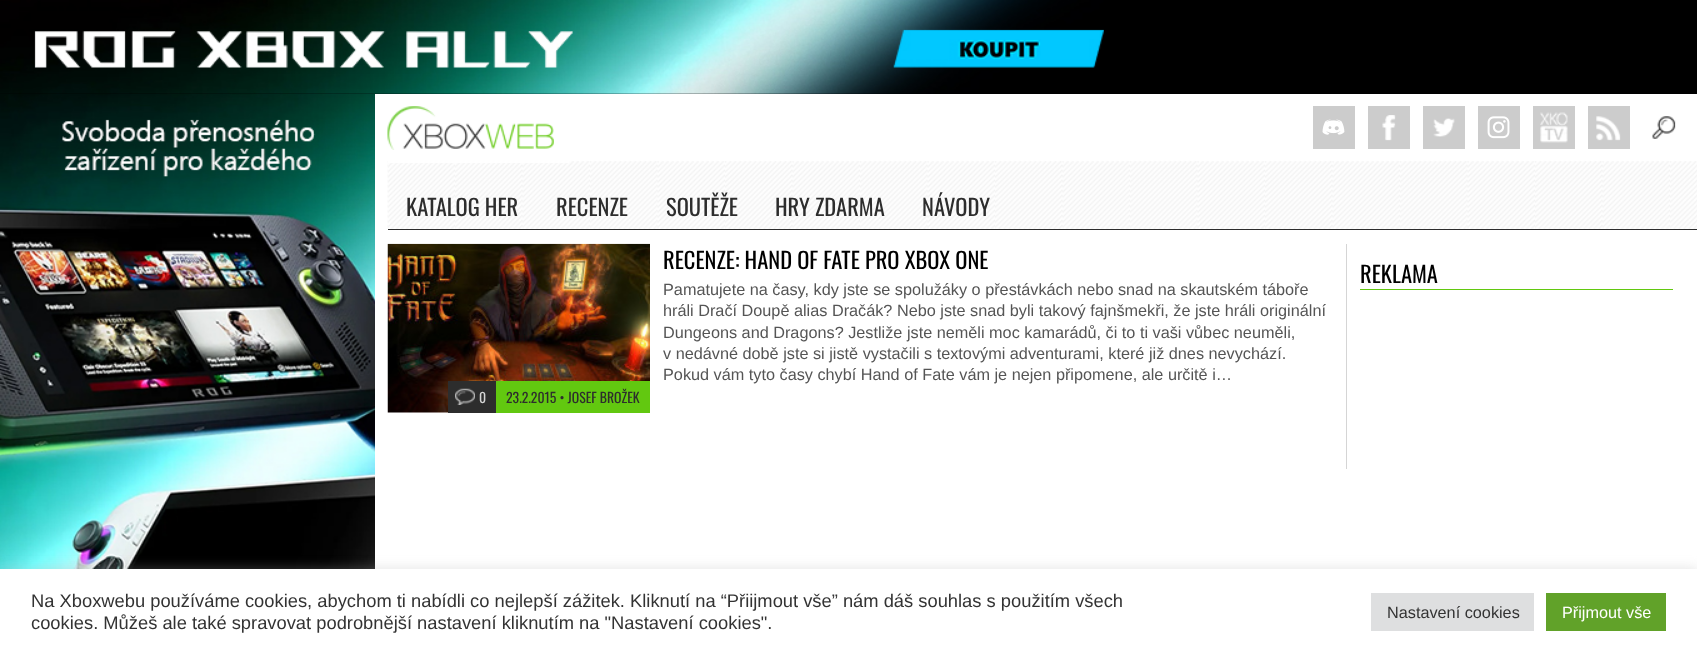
(async () => {
    const canvas = document.querySelector("canvas");
    canvas.width = 1697;
    canvas.height = 655;
    const context = canvas.getContext("2d");
    context.miterLimit = 4;
    context.fontKerning = "normal";
    function write(s, x, y, font, color) {
        context.font = font;
        context.fillStyle = color;
        context.fillText(s, x, y);
    }
    function block(x, y, w, h, color) {
        context.fillStyle = color;
        context.fillRect(x, y, w, h);
    }
    async function photo(src, x, y, w, h) {
        const img = new Image();
        img.src = src;
        await img.decode();
        context.drawImage(img, x, y, w, h);
    }

    block(0, 0, 1697, 655, "rgb(255, 255, 255)");
    await photo("media/1.png", 0, 94, 375, 475);
    block(0, 0, 1697, 94, "rgb(0, 0, 0)");
    await photo("media/2.png", 0, 0, 1104, 94);
    await photo("media/3.png", 387, 161, 1310, 68);
    block(388, 229, 1309, 1, "rgb(45, 45, 45)");
    block(388, 161, 181, 2, "rgb(255, 255, 255)");
    await photo("media/4.png", 387, 106, 167, 44);
    block(1313, 106, 42, 43, "rgb(204, 204, 204)");
    await photo("media/5.png", 1322, 119, 23, 16);
    block(1368, 106, 42, 43, "rgb(204, 204, 204)");
    await photo("media/6.png", 1382, 115, 14, 26);
    block(1423, 106, 42, 43, "rgb(204, 204, 204)");
    await photo("media/7.png", 1433, 118, 22, 19);
    block(1478, 106, 42, 43, "rgb(204, 204, 204)");
    await photo("media/8.png", 1487, 116, 23, 23);
    block(1533, 106, 42, 43, "rgb(204, 204, 204)");
    await photo("media/9.png", 1540, 112, 28, 31);
    block(1588, 106, 42, 43, "rgb(204, 204, 204)");
    await photo("media/10.png", 1596, 116, 25, 25);
    await photo("media/11.png", 1652, 116, 24, 23);
    write("KATALOG HER", 406, 216, "22.5px Oswald", "rgb(45, 45, 45)");
    write("RECENZE", 556, 216, "22.5px Oswald", "rgb(45, 45, 45)");
    write("SOUTĚŽE", 666, 216, "22.5px Oswald", "rgb(45, 45, 45)");
    write("HRY ZDARMA", 775, 216, "22.5px Oswald", "rgb(45, 45, 45)");
    write("NÁVODY", 922, 216, "22.5px Oswald", "rgb(45, 45, 45)");
    block(1346, 244, 1, 225, "rgb(213, 213, 213)");
    write("RECENZE: HAND OF FATE PRO XBOX ONE", 663, 269, "22.5px Oswald", "rgb(0, 0, 0)");
    write("Pamatujete na časy, kdy jste se spolužáky o přestávkách nebo snad na skautském táboře", 663, 295, "16.25px Liberation Sans", "rgb(85, 85, 85)");
    write("hráli Dračí Doupě alias Dračák? Nebo jste snad byli takový fajnšmekři, že jste hráli originální", 663, 316, "16.25px Liberation Sans", "rgb(85, 85, 85)");
    write("Dungeons and Dragons? Jestliže jste neměli moc kamarádů, či to ti vaši vůbec neuměli,", 663, 338, "16.25px Liberation Sans", "rgb(85, 85, 85)");
    write("v nedávné době jste si jistě vystačili s textovými adventurami, které již dnes nevychází.", 663, 359, "16.25px Liberation Sans", "rgb(85, 85, 85)");
    write("Pokud vám tyto časy chybí Hand of Fate vám je nejen připomene, ale určitě i…", 663, 380, "16.25px Liberation Sans", "rgb(85, 85, 85)");
    await photo("media/12.png", 387, 243, 263, 170);
    block(448, 381, 48, 32, "rgb(45, 45, 45)");
    await photo("media/13.png", 455, 388, 20, 17);
    write("0", 479, 403, "13.75px Oswald", "rgb(213, 213, 213)");
    block(496, 381, 154, 32, "rgb(98, 200, 16)");
    write("23.2.2015 • JOSEF BROŽEK", 506, 403, "13.75px Oswald", "rgb(45, 45, 45)");
    block(1360, 289, 313, 1, "rgb(98, 200, 16)");
    write("REKLAMA", 1360, 283, "22.5px Oswald", "rgb(0, 0, 0)");
    context.fillStyle = "rgba(172, 171, 171, 0.3)";
    context.filter = "blur(6px)";
    context.beginPath();
    context.rect(0, 568, 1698, 86);
    context.fill();
    context.filter = "none";
    block(0, 569, 1697, 86, "rgb(255, 255, 255)");
    write("Na Xboxwebu používáme cookies, abychom ti nabídli co nejlepší zážitek. Kliknutí na “Přiijmout vše” nám dáš souhlas s použitím všech", 31, 607, "18.33px Liberation Sans", "rgb(51, 51, 51)");
    write("cookies. Můžeš ale také spravovat podrobnější nastavení kliknutím na \"Nastavení cookies\".", 31, 629, "18.33px Liberation Sans", "rgb(51, 51, 51)");
    block(1371, 593, 163, 38, "rgb(222, 223, 224)");
    write("Nastavení cookies", 1387, 618, "16.25px Liberation Sans", "rgb(51, 51, 51)");
    block(1546, 593, 120, 38, "rgb(97, 162, 41)");
    write("Přijmout vše", 1562, 618, "16.25px Liberation Sans", "rgb(255, 255, 255)");
})();
